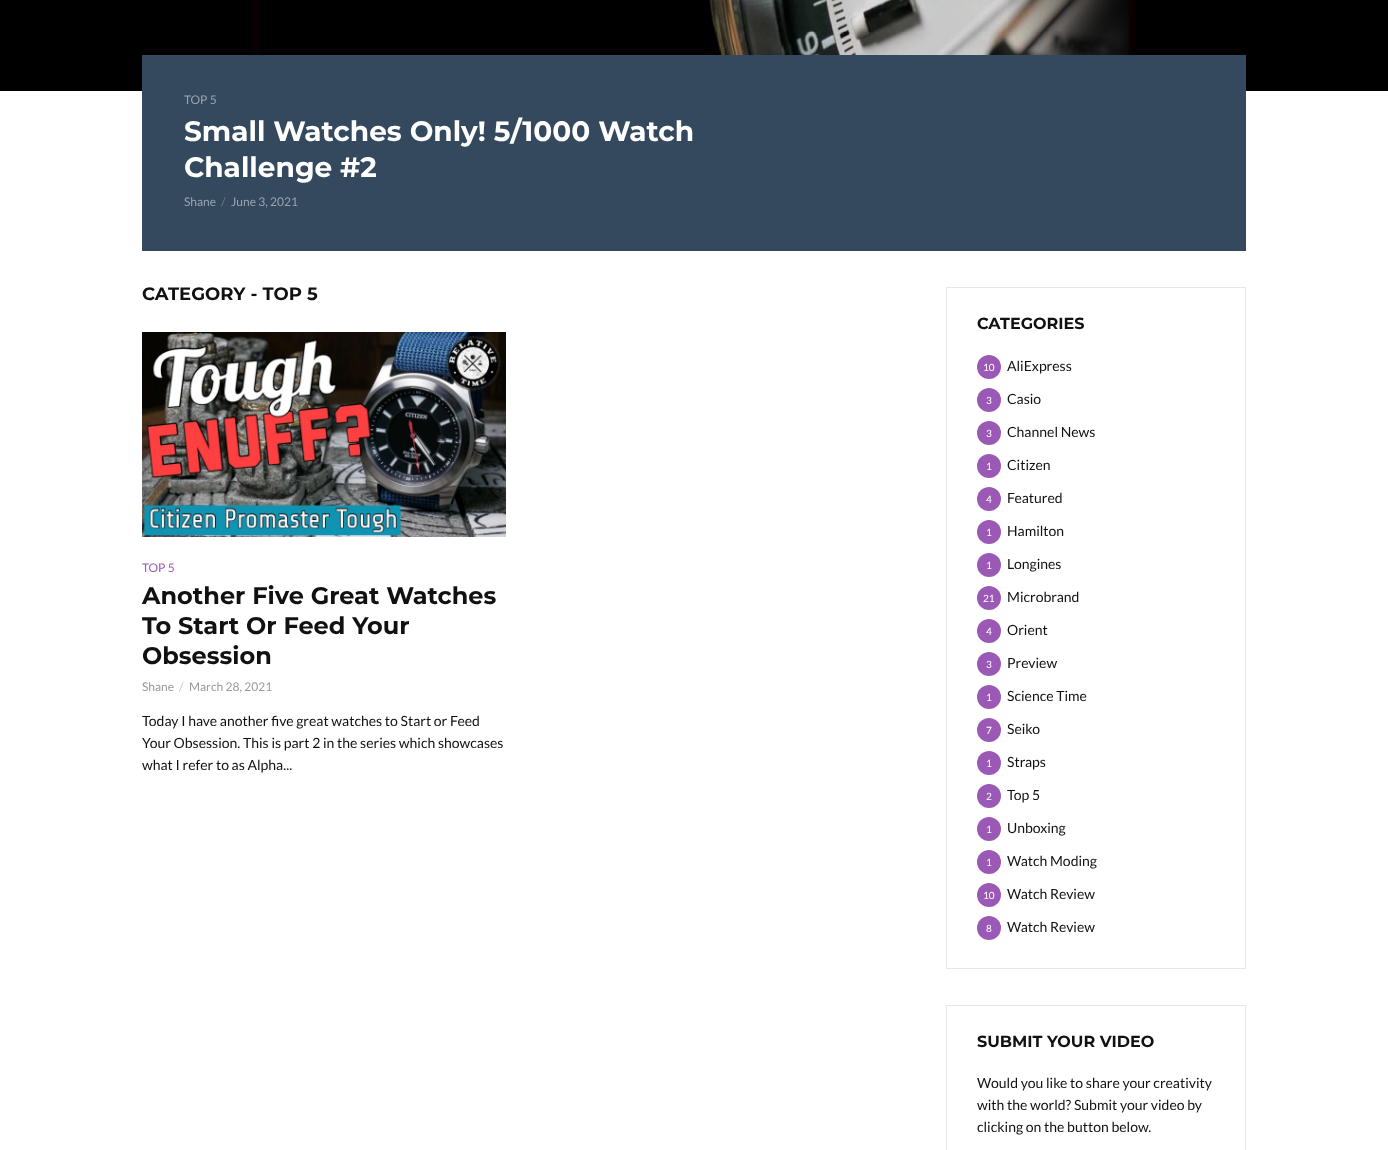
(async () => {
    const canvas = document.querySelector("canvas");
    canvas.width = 1388;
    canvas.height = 1150;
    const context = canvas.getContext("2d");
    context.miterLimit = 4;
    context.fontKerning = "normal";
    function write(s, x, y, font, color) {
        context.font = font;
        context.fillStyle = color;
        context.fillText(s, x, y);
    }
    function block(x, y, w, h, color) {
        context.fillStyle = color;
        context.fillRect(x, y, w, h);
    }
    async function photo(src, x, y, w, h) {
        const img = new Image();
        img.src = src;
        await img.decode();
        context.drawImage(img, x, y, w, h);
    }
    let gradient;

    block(0, 0, 1388, 1150, "rgb(255, 255, 255)");
    block(0, 0, 1388, 91, "rgb(0, 0, 0)");
    await photo("media/1.png", 251, 0, 886, 55);
    gradient = context.createLinearGradient(250, -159, 383, -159);
    gradient.addColorStop(0, "rgb(0, 0, 0)");
    gradient.addColorStop(1, "rgba(0, 0, 0, 0)");
    context.fillStyle = gradient;
    context.fillRect(251, 0, 10, 55);
    gradient = context.createLinearGradient(1005, -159, 1138, -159);
    gradient.addColorStop(0, "rgba(0, 0, 0, 0)");
    gradient.addColorStop(1, "rgb(0, 0, 0)");
    context.fillStyle = gradient;
    context.fillRect(1008, 0, 129, 55);
    block(142, 55, 1104, 196, "rgb(52, 73, 94)");
    write("TOP 5", 184, 104, "12px Lato", "rgb(154, 164, 175)");
    write("Small Watches Only! 5/1000 Watch", 184, 141, "bold 28px Montserrat", "rgb(255, 255, 255)");
    write("Challenge #2", 184, 177, "bold 28px Montserrat", "rgb(255, 255, 255)");
    write("Shane", 184, 206, "12px Lato", "rgb(154, 164, 175)");
    write("/", 221, 206, "12px Lato", "rgb(103, 119, 135)");
    write("June 3, 2021", 231, 206, "12px Lato", "rgb(154, 164, 175)");
    write("CATEGORY - TOP 5", 142, 300, "bold 18px Montserrat", "rgb(17, 17, 17)");
    await photo("media/2.png", 142, 332, 364, 205);
    write("TOP 5", 142, 572, "12px Lato", "rgb(155, 89, 182)");
    write("Another Five Great Watches", 142, 604, "bold 24px Montserrat", "rgb(17, 17, 17)");
    write("To Start Or Feed Your", 142, 634, "bold 24px Montserrat", "rgb(17, 17, 17)");
    write("Obsession", 142, 664, "bold 24px Montserrat", "rgb(17, 17, 17)");
    write("Shane", 142, 691, "12px Lato", "rgb(153, 153, 153)");
    write("/", 179, 691, "12px Lato", "rgb(204, 204, 204)");
    write("March 28, 2021", 189, 691, "12px Lato", "rgb(153, 153, 153)");
    write("Today I have another five great watches to Start or Feed", 142, 726, "14px Lato", "rgb(17, 17, 17)");
    write("Your Obsession. This is part 2 in the series which showcases", 142, 748, "14px Lato", "rgb(17, 17, 17)");
    write("what I refer to as Alpha...", 142, 770, "14px Lato", "rgb(17, 17, 17)");
    context.strokeStyle = "rgb(231, 231, 231)";
    context.strokeRect(946.5, 287.5, 299, 681);
    write("CATEGORIES", 977, 329, "bold 16px Montserrat", "rgb(17, 17, 17)");
    context.fillStyle = "rgb(155, 89, 182)";
    context.beginPath();
    context.arc(989, 367, 12, 0, Math.PI * 2);
    context.fill();
    write("10", 983, 371, "10px Lato", "rgb(255, 255, 255)");
    write("AliExpress", 1007, 371, "14px Lato", "rgb(17, 17, 17)");
    context.fillStyle = "rgb(155, 89, 182)";
    context.beginPath();
    context.arc(989, 400, 12, 0, Math.PI * 2);
    context.fill();
    write("3", 986, 404, "10px Lato", "rgb(255, 255, 255)");
    write("Casio", 1007, 404, "14px Lato", "rgb(17, 17, 17)");
    context.fillStyle = "rgb(155, 89, 182)";
    context.beginPath();
    context.arc(989, 433, 12, 0, Math.PI * 2);
    context.fill();
    write("3", 986, 437, "10px Lato", "rgb(255, 255, 255)");
    write("Channel News", 1007, 437, "14px Lato", "rgb(17, 17, 17)");
    context.fillStyle = "rgb(155, 89, 182)";
    context.beginPath();
    context.arc(989, 466, 12, 0, Math.PI * 2);
    context.fill();
    write("1", 986, 470, "10px Lato", "rgb(255, 255, 255)");
    write("Citizen", 1007, 470, "14px Lato", "rgb(17, 17, 17)");
    context.fillStyle = "rgb(155, 89, 182)";
    context.beginPath();
    context.arc(989, 499, 12, 0, Math.PI * 2);
    context.fill();
    write("4", 986, 503, "10px Lato", "rgb(255, 255, 255)");
    write("Featured", 1007, 503, "14px Lato", "rgb(17, 17, 17)");
    context.fillStyle = "rgb(155, 89, 182)";
    context.beginPath();
    context.arc(989, 532, 12, 0, Math.PI * 2);
    context.fill();
    write("1", 986, 536, "10px Lato", "rgb(255, 255, 255)");
    write("Hamilton", 1007, 536, "14px Lato", "rgb(17, 17, 17)");
    context.fillStyle = "rgb(155, 89, 182)";
    context.beginPath();
    context.arc(989, 565, 12, 0, Math.PI * 2);
    context.fill();
    write("1", 986, 569, "10px Lato", "rgb(255, 255, 255)");
    write("Longines", 1007, 569, "14px Lato", "rgb(17, 17, 17)");
    context.fillStyle = "rgb(155, 89, 182)";
    context.beginPath();
    context.arc(989, 598, 12, 0, Math.PI * 2);
    context.fill();
    write("21", 983, 602, "10px Lato", "rgb(255, 255, 255)");
    write("Microbrand", 1007, 602, "14px Lato", "rgb(17, 17, 17)");
    context.fillStyle = "rgb(155, 89, 182)";
    context.beginPath();
    context.arc(989, 631, 12, 0, Math.PI * 2);
    context.fill();
    write("4", 986, 635, "10px Lato", "rgb(255, 255, 255)");
    write("Orient", 1007, 635, "14px Lato", "rgb(17, 17, 17)");
    context.fillStyle = "rgb(155, 89, 182)";
    context.beginPath();
    context.arc(989, 664, 12, 0, Math.PI * 2);
    context.fill();
    write("3", 986, 668, "10px Lato", "rgb(255, 255, 255)");
    write("Preview", 1007, 668, "14px Lato", "rgb(17, 17, 17)");
    context.fillStyle = "rgb(155, 89, 182)";
    context.beginPath();
    context.arc(989, 697, 12, 0, Math.PI * 2);
    context.fill();
    write("1", 986, 701, "10px Lato", "rgb(255, 255, 255)");
    write("Science Time", 1007, 701, "14px Lato", "rgb(17, 17, 17)");
    context.fillStyle = "rgb(155, 89, 182)";
    context.beginPath();
    context.arc(989, 730, 12, 0, Math.PI * 2);
    context.fill();
    write("7", 986, 734, "10px Lato", "rgb(255, 255, 255)");
    write("Seiko", 1007, 734, "14px Lato", "rgb(17, 17, 17)");
    context.fillStyle = "rgb(155, 89, 182)";
    context.beginPath();
    context.arc(989, 763, 12, 0, Math.PI * 2);
    context.fill();
    write("1", 986, 767, "10px Lato", "rgb(255, 255, 255)");
    write("Straps", 1007, 767, "14px Lato", "rgb(17, 17, 17)");
    context.fillStyle = "rgb(155, 89, 182)";
    context.beginPath();
    context.arc(989, 796, 12, 0, Math.PI * 2);
    context.fill();
    write("2", 986, 800, "10px Lato", "rgb(255, 255, 255)");
    write("Top 5", 1007, 800, "14px Lato", "rgb(17, 17, 17)");
    context.fillStyle = "rgb(155, 89, 182)";
    context.beginPath();
    context.arc(989, 829, 12, 0, Math.PI * 2);
    context.fill();
    write("1", 986, 833, "10px Lato", "rgb(255, 255, 255)");
    write("Unboxing", 1007, 833, "14px Lato", "rgb(17, 17, 17)");
    context.fillStyle = "rgb(155, 89, 182)";
    context.beginPath();
    context.arc(989, 862, 12, 0, Math.PI * 2);
    context.fill();
    write("1", 986, 866, "10px Lato", "rgb(255, 255, 255)");
    write("Watch Moding", 1007, 866, "14px Lato", "rgb(17, 17, 17)");
    context.fillStyle = "rgb(155, 89, 182)";
    context.beginPath();
    context.arc(989, 895, 12, 0, Math.PI * 2);
    context.fill();
    write("10", 983, 899, "10px Lato", "rgb(255, 255, 255)");
    write("Watch Review", 1007, 899, "14px Lato", "rgb(17, 17, 17)");
    context.fillStyle = "rgb(155, 89, 182)";
    context.beginPath();
    context.arc(989, 928, 12, 0, Math.PI * 2);
    context.fill();
    write("8", 986, 932, "10px Lato", "rgb(255, 255, 255)");
    write("Watch Review", 1007, 932, "14px Lato", "rgb(17, 17, 17)");
    context.strokeRect(946.5, 1005.5, 299, 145);
    write("SUBMIT YOUR VIDEO", 977, 1047, "bold 16px Montserrat", "rgb(17, 17, 17)");
    write("Would you like to share your creativity", 977, 1088, "14px Lato", "rgb(17, 17, 17)");
    write("with the world? Submit your video by", 977, 1110, "14px Lato", "rgb(17, 17, 17)");
    write("clicking on the button below.", 977, 1132, "14px Lato", "rgb(17, 17, 17)");
})();
